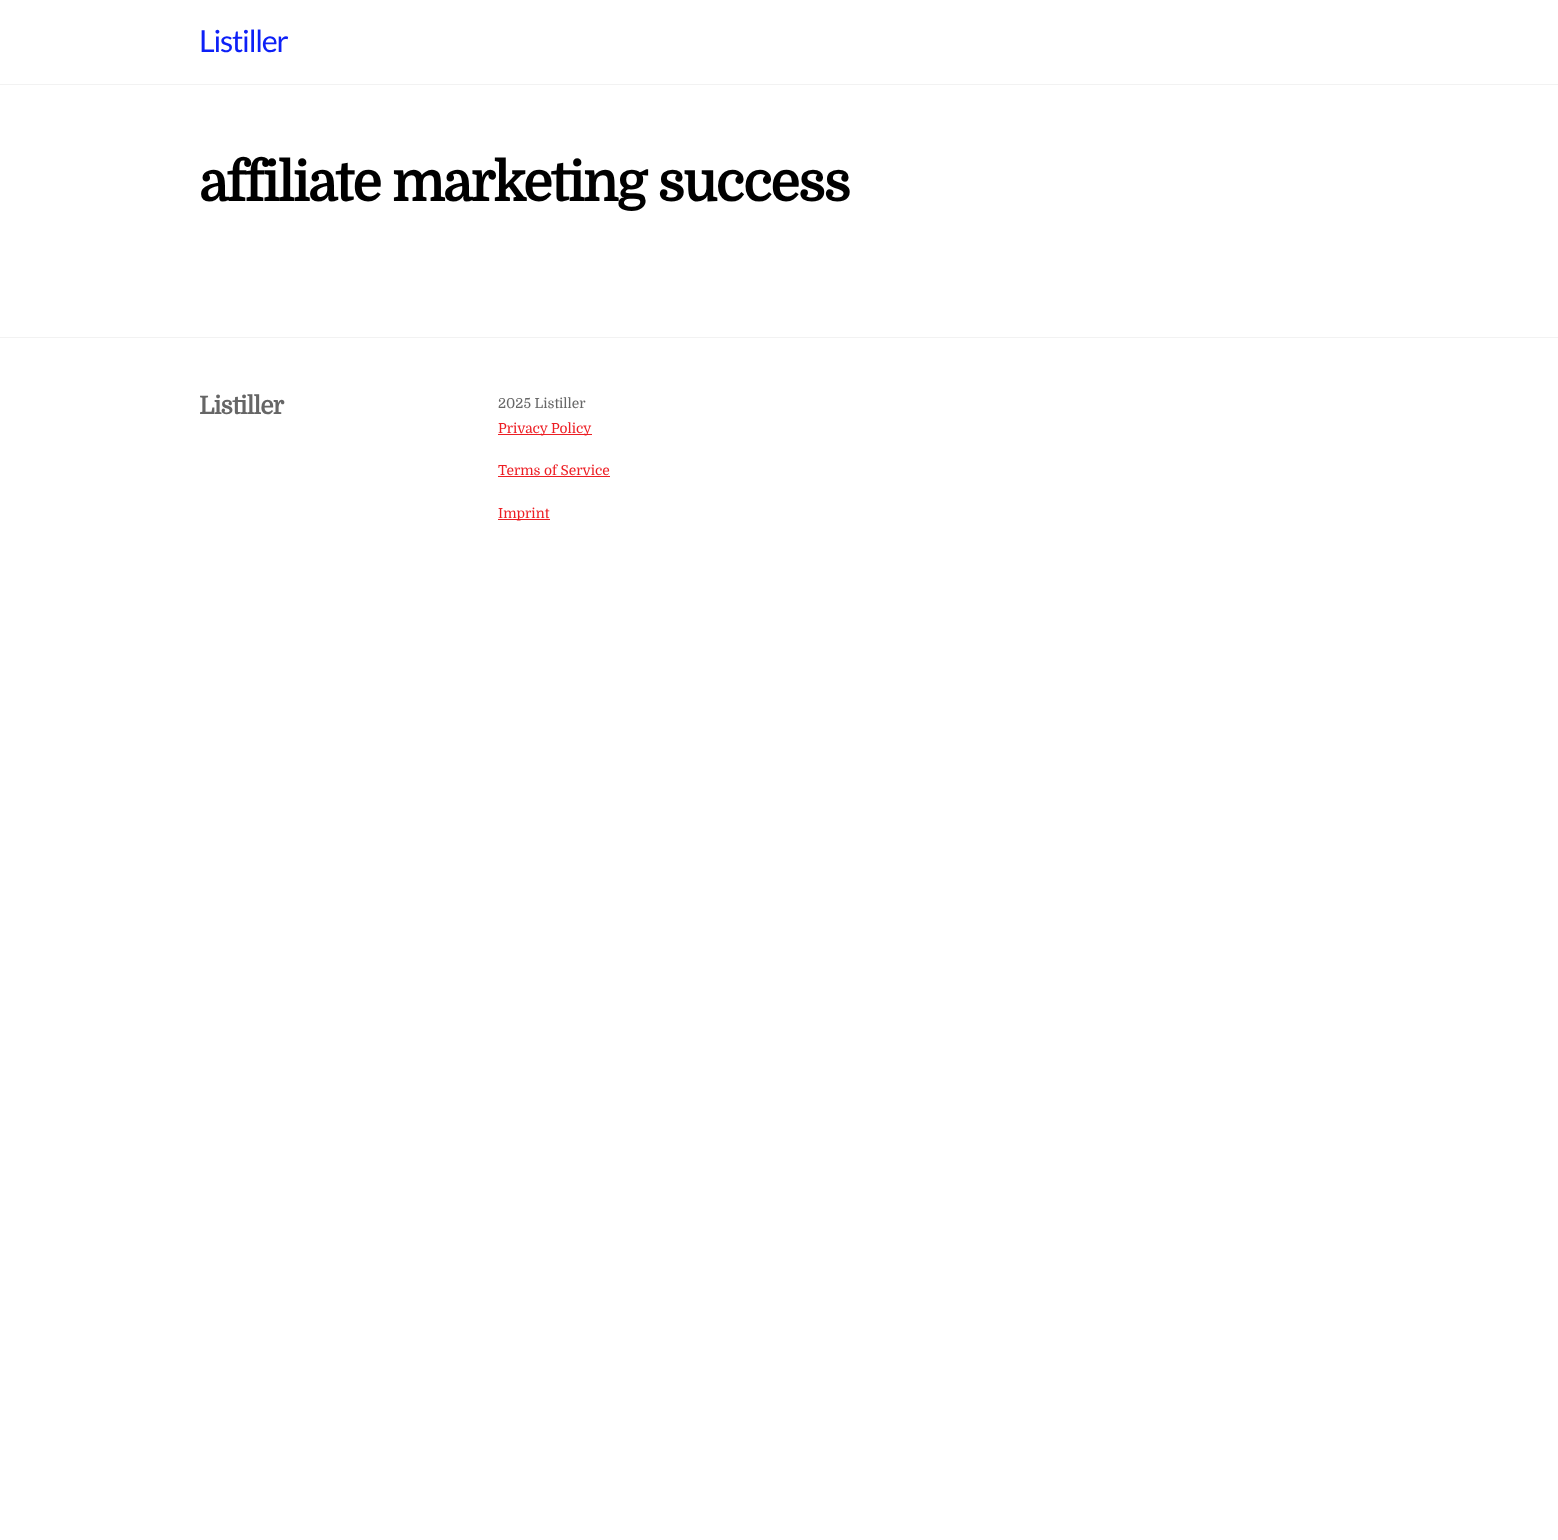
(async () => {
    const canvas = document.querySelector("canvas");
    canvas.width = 1558;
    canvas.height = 1540;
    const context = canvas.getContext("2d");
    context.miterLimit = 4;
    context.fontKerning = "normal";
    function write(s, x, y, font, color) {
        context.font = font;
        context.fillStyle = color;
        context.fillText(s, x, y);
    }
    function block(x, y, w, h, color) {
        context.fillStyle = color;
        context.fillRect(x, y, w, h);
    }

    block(0, 0, 1558, 1540, "rgb(255, 255, 255)");
    block(0, 84, 1558, 1, "rgb(242, 242, 242)");
    context.letterSpacing = "-1.25px";
    write("Listiller", 199, 52, "30.5px Lato", "rgb(13, 32, 247)");
    context.letterSpacing = "-1.6px";
    write("affiliate marketing success", 199, 201, "bold 54px Domine", "rgb(0, 0, 0)");
    block(0, 337, 1558, 1, "rgb(242, 242, 242)");
    context.letterSpacing = "-0.75px";
    write("Listiller", 199, 414, "bold 24.5px Domine", "rgb(102, 102, 102)");
    context.letterSpacing = "0px";
    write("2025 Listiller", 498, 408, "13.75px Domine", "rgb(102, 102, 102)");
    block(498, 434, 94, 1, "rgb(237, 30, 36)");
    write("Privacy Policy", 498, 433, "13.75px Domine", "rgb(237, 30, 36)");
    write("Terms of Service", 498, 475, "13.75px Domine", "rgb(237, 30, 36)");
    block(498, 476, 112, 1, "rgb(237, 30, 36)");
    block(498, 519, 52, 1, "rgb(237, 30, 36)");
    write("Imprint", 498, 518, "13.75px Domine", "rgb(237, 30, 36)");
})();
